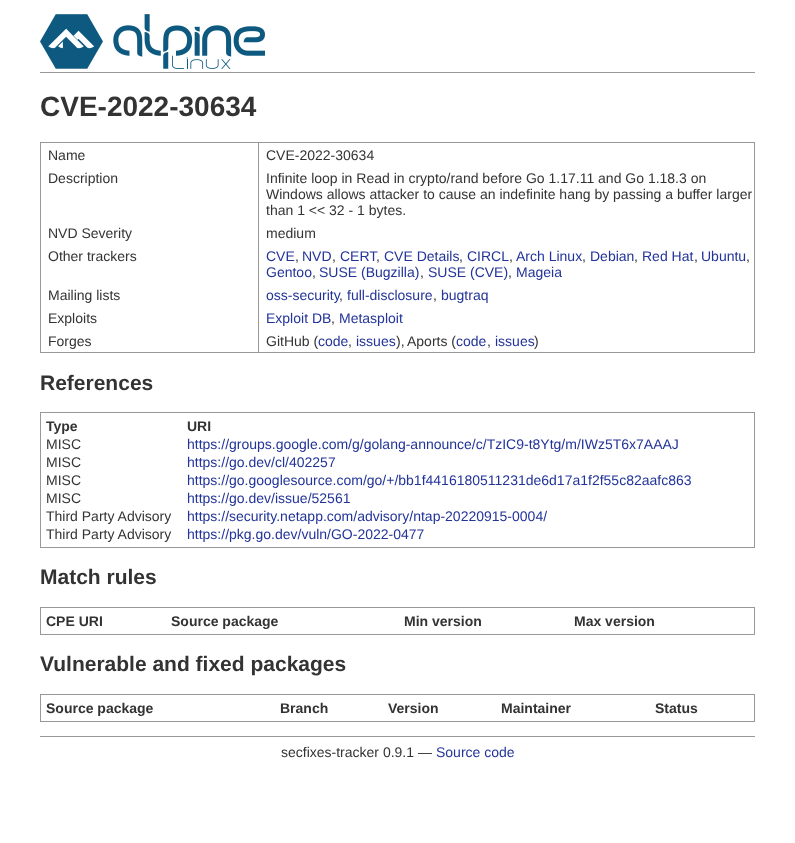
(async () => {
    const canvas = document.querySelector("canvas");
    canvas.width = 795;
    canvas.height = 843;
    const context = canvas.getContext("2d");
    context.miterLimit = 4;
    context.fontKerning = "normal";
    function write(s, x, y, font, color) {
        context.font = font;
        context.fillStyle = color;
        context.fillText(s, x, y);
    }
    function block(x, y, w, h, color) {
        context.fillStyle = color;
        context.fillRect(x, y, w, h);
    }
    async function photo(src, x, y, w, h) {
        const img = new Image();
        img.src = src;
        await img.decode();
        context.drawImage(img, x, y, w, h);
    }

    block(0, 0, 795, 843, "rgb(255, 255, 255)");
    block(40, 72, 715, 1, "rgb(153, 153, 153)");
    await photo("media/1.png", 40, 14, 225, 55);
    write("CVE-2022-30634", 40, 116, "bold 28px Liberation Sans", "rgb(51, 51, 51)");
    context.strokeStyle = "rgb(153, 153, 153)";
    context.strokeRect(40.5, 142.5, 714, 210);
    write("Name", 48, 160, "14px Liberation Sans", "rgb(51, 51, 51)");
    block(258, 143, 1, 209, "rgb(153, 153, 153)");
    write("CVE-2022-30634", 266, 160, "14px Liberation Sans", "rgb(51, 51, 51)");
    write("Description", 48, 183, "14px Liberation Sans", "rgb(51, 51, 51)");
    write("Infinite loop in Read in crypto/rand before Go 1.17.11 and Go 1.18.3 on", 266, 183, "14px Liberation Sans", "rgb(51, 51, 51)");
    write("Windows allows attacker to cause an indefinite hang by passing a buffer larger", 266, 199, "14px Liberation Sans", "rgb(51, 51, 51)");
    write("than 1 << 32 - 1 bytes.", 266, 215, "14px Liberation Sans", "rgb(51, 51, 51)");
    write("NVD Severity", 48, 238, "14px Liberation Sans", "rgb(51, 51, 51)");
    write("medium", 266, 238, "14px Liberation Sans", "rgb(51, 51, 51)");
    write("Other trackers", 48, 261, "14px Liberation Sans", "rgb(51, 51, 51)");
    write("CVE", 266, 261, "14px Liberation Sans", "rgb(34, 51, 153)");
    write(",", 295, 261, "14px Liberation Sans", "rgb(51, 51, 51)");
    write("NVD", 302, 261, "14px Liberation Sans", "rgb(34, 51, 153)");
    write(",", 332, 261, "14px Liberation Sans", "rgb(51, 51, 51)");
    write("CERT", 340, 261, "14px Liberation Sans", "rgb(34, 51, 153)");
    write("CVE Details", 384, 261, "14px Liberation Sans", "rgb(34, 51, 153)");
    write("CIRCL", 467, 261, "14px Liberation Sans", "rgb(34, 51, 153)");
    write("Arch Linux", 516, 261, "14px Liberation Sans", "rgb(34, 51, 153)");
    write("Debian", 590, 261, "14px Liberation Sans", "rgb(34, 51, 153)");
    write("Red Hat", 642, 261, "14px Liberation Sans", "rgb(34, 51, 153)");
    write("Ubuntu", 701, 261, "14px Liberation Sans", "rgb(34, 51, 153)");
    write(",", 376, 261, "14px Liberation Sans", "rgb(51, 51, 51)");
    write(",", 459, 261, "14px Liberation Sans", "rgb(51, 51, 51)");
    write(",", 509, 261, "14px Liberation Sans", "rgb(51, 51, 51)");
    write(",", 582, 261, "14px Liberation Sans", "rgb(51, 51, 51)");
    write(",", 634, 261, "14px Liberation Sans", "rgb(51, 51, 51)");
    write(",", 694, 261, "14px Liberation Sans", "rgb(51, 51, 51)");
    write(",", 746, 261, "14px Liberation Sans", "rgb(51, 51, 51)");
    write("Gentoo", 266, 277, "14px Liberation Sans", "rgb(34, 51, 153)");
    write(",", 312, 277, "14px Liberation Sans", "rgb(51, 51, 51)");
    write("SUSE (Bugzilla)", 319, 277, "14px Liberation Sans", "rgb(34, 51, 153)");
    write(",", 420, 277, "14px Liberation Sans", "rgb(51, 51, 51)");
    write("SUSE (CVE)", 428, 277, "14px Liberation Sans", "rgb(34, 51, 153)");
    write(",", 508, 277, "14px Liberation Sans", "rgb(51, 51, 51)");
    write("Mageia", 516, 277, "14px Liberation Sans", "rgb(34, 51, 153)");
    write("Mailing lists", 48, 300, "14px Liberation Sans", "rgb(51, 51, 51)");
    write("oss-security", 266, 300, "14px Liberation Sans", "rgb(34, 51, 153)");
    write(",", 339, 300, "14px Liberation Sans", "rgb(51, 51, 51)");
    write("full-disclosure", 347, 300, "14px Liberation Sans", "rgb(34, 51, 153)");
    write(",", 433, 300, "14px Liberation Sans", "rgb(51, 51, 51)");
    write("bugtraq", 441, 300, "14px Liberation Sans", "rgb(34, 51, 153)");
    write("Exploits", 48, 323, "14px Liberation Sans", "rgb(51, 51, 51)");
    write("Exploit DB", 266, 323, "14px Liberation Sans", "rgb(34, 51, 153)");
    write(",", 331, 323, "14px Liberation Sans", "rgb(51, 51, 51)");
    write("Metasploit", 339, 323, "14px Liberation Sans", "rgb(34, 51, 153)");
    write("Forges", 48, 346, "14px Liberation Sans", "rgb(51, 51, 51)");
    write("GitHub (", 266, 346, "14px Liberation Sans", "rgb(51, 51, 51)");
    write("code", 318, 346, "14px Liberation Sans", "rgb(34, 51, 153)");
    write(",", 348, 346, "14px Liberation Sans", "rgb(51, 51, 51)");
    write("issues", 356, 346, "14px Liberation Sans", "rgb(34, 51, 153)");
    write("),", 396, 346, "14px Liberation Sans", "rgb(51, 51, 51)");
    write("Aports (", 407, 346, "14px Liberation Sans", "rgb(51, 51, 51)");
    write("code", 456, 346, "14px Liberation Sans", "rgb(34, 51, 153)");
    write(",", 487, 346, "14px Liberation Sans", "rgb(51, 51, 51)");
    write("issues", 495, 346, "14px Liberation Sans", "rgb(34, 51, 153)");
    write(")", 534, 346, "14px Liberation Sans", "rgb(51, 51, 51)");
    write("References", 40, 390, "bold 21px Liberation Sans", "rgb(51, 51, 51)");
    context.strokeRect(40.5, 412.5, 714, 135);
    write("Type", 46, 431, "bold 14px Liberation Sans", "rgb(51, 51, 51)");
    write("URI", 187, 431, "bold 14px Liberation Sans", "rgb(51, 51, 51)");
    write("MISC", 46, 449, "14px Liberation Sans", "rgb(51, 51, 51)");
    write("https://groups.google.com/g/golang-announce/c/TzIC9-t8Ytg/m/IWz5T6x7AAAJ", 187, 449, "14px Liberation Sans", "rgb(34, 51, 153)");
    write("MISC", 46, 467, "14px Liberation Sans", "rgb(51, 51, 51)");
    write("https://go.dev/cl/402257", 187, 467, "14px Liberation Sans", "rgb(34, 51, 153)");
    write("MISC", 46, 485, "14px Liberation Sans", "rgb(51, 51, 51)");
    write("https://go.googlesource.com/go/+/bb1f4416180511231de6d17a1f2f55c82aafc863", 187, 485, "14px Liberation Sans", "rgb(34, 51, 153)");
    write("MISC", 46, 503, "14px Liberation Sans", "rgb(51, 51, 51)");
    write("https://go.dev/issue/52561", 187, 503, "14px Liberation Sans", "rgb(34, 51, 153)");
    write("Third Party Advisory", 46, 521, "14px Liberation Sans", "rgb(51, 51, 51)");
    write("https://security.netapp.com/advisory/ntap-20220915-0004/", 187, 521, "14px Liberation Sans", "rgb(34, 51, 153)");
    write("Third Party Advisory", 46, 539, "14px Liberation Sans", "rgb(51, 51, 51)");
    write("https://pkg.go.dev/vuln/GO-2022-0477", 187, 539, "14px Liberation Sans", "rgb(34, 51, 153)");
    write("Match rules", 40, 584, "bold 21px Liberation Sans", "rgb(51, 51, 51)");
    context.strokeRect(40.5, 607.5, 714, 27);
    write("CPE URI", 46, 626, "bold 14px Liberation Sans", "rgb(51, 51, 51)");
    write("Source package", 171, 626, "bold 14px Liberation Sans", "rgb(51, 51, 51)");
    write("Min version", 404, 626, "bold 14px Liberation Sans", "rgb(51, 51, 51)");
    write("Max version", 574, 626, "bold 14px Liberation Sans", "rgb(51, 51, 51)");
    write("Vulnerable and fixed packages", 40, 671, "bold 21px Liberation Sans", "rgb(51, 51, 51)");
    context.strokeRect(40.5, 694.5, 714, 27);
    write("Source package", 46, 713, "bold 14px Liberation Sans", "rgb(51, 51, 51)");
    write("Branch", 280, 713, "bold 14px Liberation Sans", "rgb(51, 51, 51)");
    write("Version", 388, 713, "bold 14px Liberation Sans", "rgb(51, 51, 51)");
    write("Maintainer", 501, 713, "bold 14px Liberation Sans", "rgb(51, 51, 51)");
    write("Status", 655, 713, "bold 14px Liberation Sans", "rgb(51, 51, 51)");
    block(40, 736, 715, 1, "rgb(153, 153, 153)");
    write("secfixes-tracker 0.9.1 —", 281, 757, "14px Liberation Sans", "rgb(51, 51, 51)");
    write("Source code", 436, 757, "14px Liberation Sans", "rgb(34, 51, 153)");
})();
